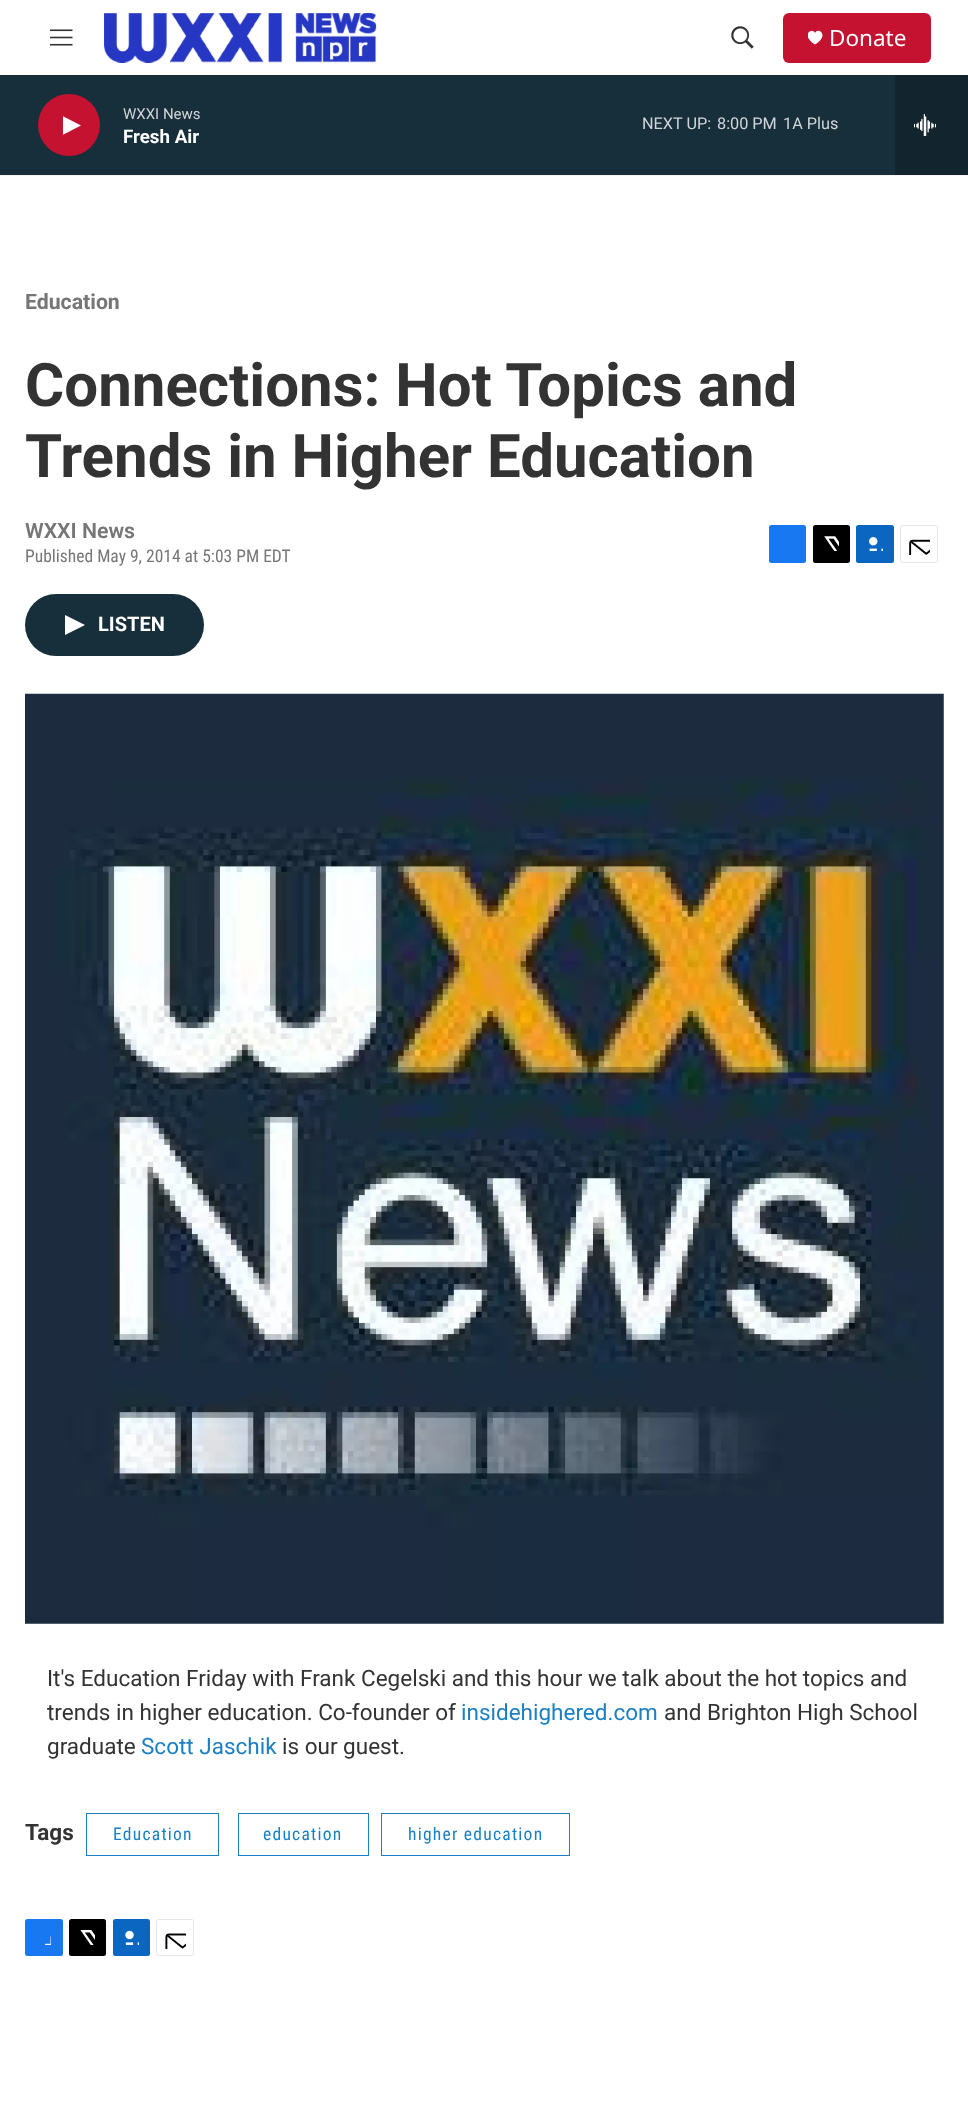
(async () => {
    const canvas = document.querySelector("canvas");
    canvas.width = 968;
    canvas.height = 2111;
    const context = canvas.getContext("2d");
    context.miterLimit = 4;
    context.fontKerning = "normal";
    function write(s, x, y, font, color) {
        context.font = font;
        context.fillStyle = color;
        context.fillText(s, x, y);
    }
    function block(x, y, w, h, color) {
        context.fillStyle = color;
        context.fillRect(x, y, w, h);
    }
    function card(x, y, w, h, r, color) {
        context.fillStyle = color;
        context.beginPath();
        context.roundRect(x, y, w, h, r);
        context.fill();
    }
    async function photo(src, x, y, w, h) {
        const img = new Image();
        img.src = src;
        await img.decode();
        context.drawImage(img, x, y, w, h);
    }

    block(0, 0, 968, 2111, "rgb(255, 255, 255)");
    block(0, 175, 968, 1, "rgb(245, 245, 245)");
    await photo("media/1.png", 50, 29, 23, 17);
    await photo("media/2.png", 104, 13, 273, 50);
    await photo("media/3.png", 731, 26, 23, 23);
    card(783, 13, 148, 50, 6, "rgb(196, 18, 48)");
    context.save();
    context.beginPath();
    context.rect(808, 30, 15, 15);
    context.clip();
    context.fillStyle = "rgb(255, 255, 255)";
    context.beginPath();
    context.moveTo(815, 33);
    context.bezierCurveTo(812.5, 26.5, 799.5, 35, 815, 44.5);
    context.bezierCurveTo(830.5, 35, 817.5, 26.5, 815, 33);
    context.closePath();
    context.fill();
    context.restore();
    write("Donate", 829, 46, "22.5px Noto Sans", "rgb(255, 255, 255)");
    block(0, 75, 895, 100, "rgb(23, 46, 59)");
    context.fillStyle = "rgb(196, 18, 48)";
    context.beginPath();
    context.arc(69, 125, 31, 0, Math.PI * 2);
    context.fill();
    context.save();
    context.beginPath();
    context.rect(63, 114, 18, 24);
    context.clip();
    context.fillStyle = "rgb(255, 255, 255)";
    context.beginPath();
    context.moveTo(62.5, 116);
    context.lineTo(81, 125.5);
    context.lineTo(62.5, 135);
    context.closePath();
    context.fill();
    context.restore();
    write("WXXI News", 123, 119, "15px Roboto", "rgb(209, 213, 216)");
    write("Fresh Air", 123, 143, "bold 18.75px 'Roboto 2'", "rgb(255, 255, 255)");
    write("NEXT UP:", 642, 129, "16.25px Roboto", "rgb(209, 213, 216)");
    write("8:00 PM", 717, 129, "16.25px Roboto", "rgb(209, 213, 216)");
    write("1A Plus", 783, 129, "16.25px Roboto", "rgb(209, 213, 216)");
    block(895, 75, 73, 100, "rgb(18, 37, 47)");
    await photo("media/4.png", 914, 114, 22, 22);
    write("Education", 25, 309, "bold 21.25px Roboto", "rgb(118, 118, 118)");
    write("Connections: Hot Topics and", 25, 406, "bold 60px Roboto", "rgb(51, 51, 51)");
    write("Trends in Higher Education", 25, 477, "bold 60px Roboto", "rgb(51, 51, 51)");
    write("WXXI News", 25, 538, "600 21.25px Roboto", "rgb(118, 118, 118)");
    write("Published May 9, 2014 at 5:03 PM EDT", 25, 562, "17.5px Roboto Condensed", "rgb(118, 118, 118)");
    card(769, 525, 37, 38, 2.5, "rgb(23, 120, 242)");
    card(813, 525, 37, 38, 2.5, "rgb(0, 0, 0)");
    await photo("media/5.png", 824, 536, 15, 15);
    card(856, 525, 38, 38, 2.5, "rgb(10, 102, 193)");
    await photo("media/6.png", 869, 537, 14, 14);
    context.beginPath();
    context.roundRect(900.5, 525.5, 37, 37, 2);
    context.strokeStyle = "rgb(230, 230, 230)";
    context.stroke();
    await photo("media/7.png", 909, 539, 21, 16);
    card(25, 594, 179, 62, 31, "rgb(23, 46, 59)");
    context.fillStyle = "rgb(255, 255, 255)";
    context.beginPath();
    context.moveTo(65, 615);
    context.lineTo(85, 625);
    context.lineTo(65, 635);
    context.closePath();
    context.fill();
    write("LISTEN", 98, 631, "bold 20px 'Roboto 2'", "rgb(255, 255, 255)");
    await photo("media/8.png", 25, 693, 919, 931);
    write("It's Education Friday with Frank Cegelski and this hour we talk about the hot topics and", 47, 1686, "22.5px Roboto", "rgb(51, 51, 51)");
    write("trends in higher education. Co-founder of", 47, 1720, "22.5px Roboto", "rgb(51, 51, 51)");
    write("insidehighered.com", 461, 1720, "22.5px Roboto", "rgb(26, 127, 195)");
    write("and Brighton High School", 664, 1720, "22.5px Roboto", "rgb(51, 51, 51)");
    write("graduate", 47, 1754, "22.5px Roboto", "rgb(51, 51, 51)");
    write("Scott Jaschik", 141, 1754, "22.5px Roboto", "rgb(26, 127, 195)");
    write("is our guest.", 282, 1754, "22.5px Roboto", "rgb(51, 51, 51)");
    write("Tags", 25, 1840, "bold 22.5px Roboto", "rgb(51, 51, 51)");
    context.strokeStyle = "rgb(26, 127, 195)";
    context.strokeRect(86.5, 1813.5, 132, 42);
    context.letterSpacing = "1.25px";
    write("Education", 113, 1840, "17.5px Roboto Condensed", "rgb(26, 127, 195)");
    context.strokeRect(238.5, 1813.5, 130, 42);
    write("education", 263, 1840, "17.5px Roboto Condensed", "rgb(26, 127, 195)");
    context.strokeRect(381.5, 1813.5, 188, 42);
    write("higher education", 408, 1840, "17.5px Roboto Condensed", "rgb(26, 127, 195)");
    card(25, 1919, 38, 37, 2.5, "rgb(23, 120, 242)");
    await photo("media/9.png", 45, 1935, 6, 10);
    card(69, 1919, 37, 37, 2.5, "rgb(0, 0, 0)");
    await photo("media/10.png", 80, 1930, 15, 15);
    card(113, 1919, 37, 37, 2.5, "rgb(10, 102, 193)");
    await photo("media/11.png", 125, 1930, 14, 15);
    context.beginPath();
    context.roundRect(156.5, 1919.5, 37, 36, 2);
    context.strokeStyle = "rgb(230, 230, 230)";
    context.stroke();
    await photo("media/12.png", 165, 1933, 21, 16);
})();
